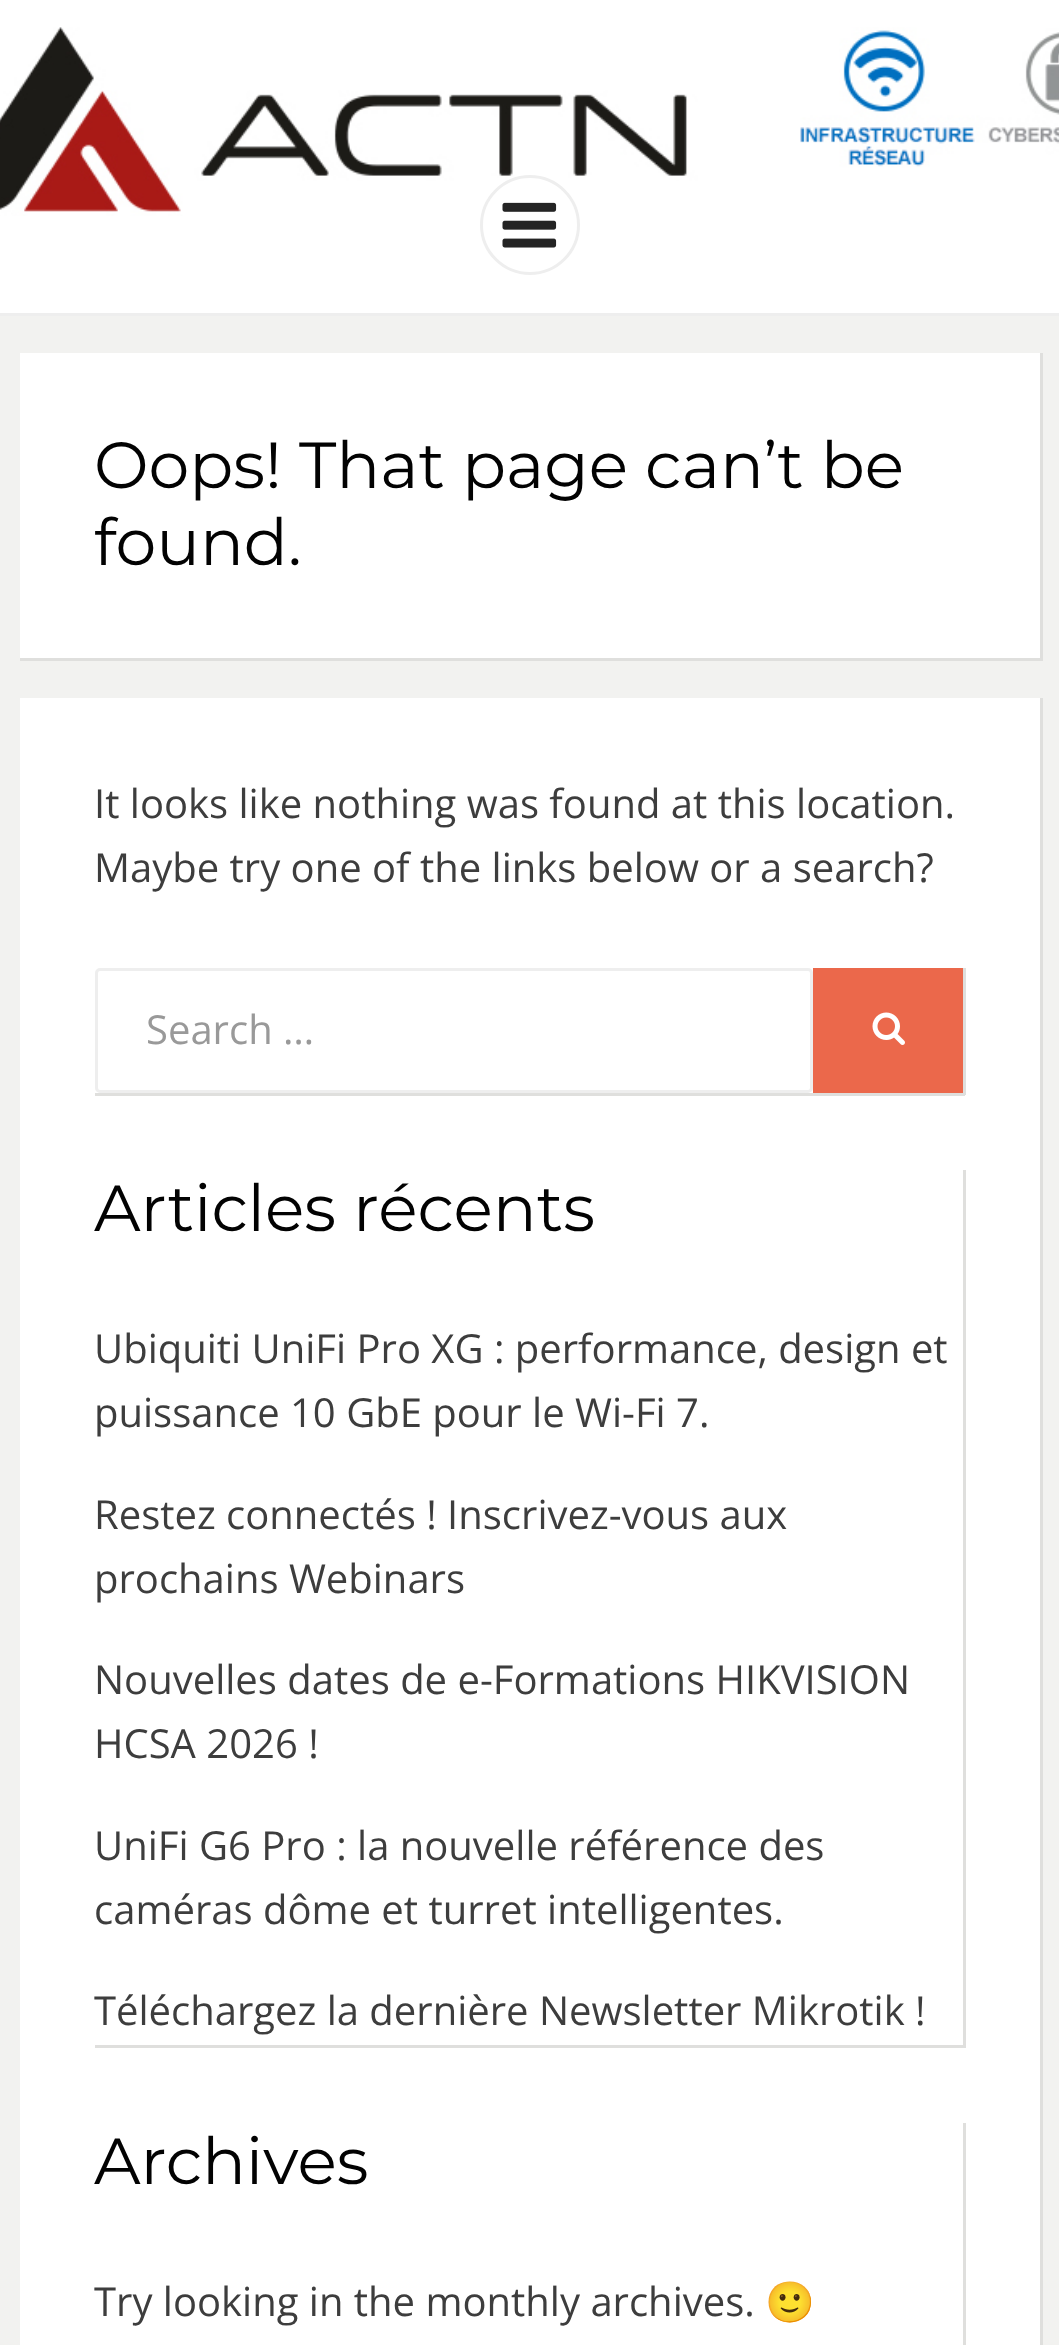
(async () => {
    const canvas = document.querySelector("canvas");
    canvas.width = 1059;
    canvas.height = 2345;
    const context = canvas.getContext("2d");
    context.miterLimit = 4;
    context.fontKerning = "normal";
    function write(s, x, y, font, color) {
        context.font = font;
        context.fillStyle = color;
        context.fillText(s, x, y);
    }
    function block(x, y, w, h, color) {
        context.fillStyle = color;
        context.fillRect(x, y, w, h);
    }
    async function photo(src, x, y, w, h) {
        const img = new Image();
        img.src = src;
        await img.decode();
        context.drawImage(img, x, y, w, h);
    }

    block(0, 0, 1059, 2345, "rgb(242, 242, 240)");
    block(0, 0, 1059, 313, "rgb(255, 255, 255)");
    await photo("media/1.png", 0, 27, 1059, 189);
    block(0, 313, 1059, 3, "rgb(238, 238, 238)");
    context.beginPath();
    context.arc(530, 225, 48.5, 0, Math.PI * 2);
    context.strokeStyle = "rgb(238, 238, 238)";
    context.lineWidth = 3;
    context.stroke();
    await photo("media/2.png", 502, 202, 55, 46);
    block(20, 353, 1020, 305, "rgb(255, 255, 255)");
    block(1040, 353, 3, 307, "rgb(223, 223, 221)");
    block(20, 658, 1023, 3, "rgb(223, 223, 221)");
    write("Oops! That page can’t be", 94, 488, "65px Montserrat", "rgb(2, 2, 2)");
    write("found.", 94, 565, "65px Montserrat", "rgb(2, 2, 2)");
    block(20, 698, 1020, 1647, "rgb(255, 255, 255)");
    block(1040, 698, 3, 1647, "rgb(223, 223, 221)");
    write("It looks like nothing was found at this location.", 94, 818, "40px Open Sans", "rgb(61, 61, 61)");
    write("Maybe try one of the links below or a search?", 94, 882, "40px Open Sans", "rgb(61, 61, 61)");
    block(963, 968, 3, 127, "rgb(223, 223, 221)");
    block(95, 1093, 870, 3, "rgb(223, 223, 221)");
    context.beginPath();
    context.roundRect(96.5, 969.5, 715, 122, 3.5);
    context.stroke();
    write("Search …", 146, 1044, "40px Open Sans", "rgb(153, 153, 153)");
    block(813, 968, 150, 125, "rgb(235, 104, 75)");
    await photo("media/3.png", 872, 1012, 33, 33);
    block(963, 1170, 3, 878, "rgb(223, 223, 221)");
    block(95, 2045, 870, 3, "rgb(223, 223, 221)");
    write("Articles récents", 94, 1231, "65px Montserrat", "rgb(2, 2, 2)");
    write("Ubiquiti UniFi Pro XG : performance, design et", 94, 1363, "40px Open Sans", "rgb(61, 61, 61)");
    write("puissance 10 GbE pour le Wi-Fi 7.", 94, 1427, "40px Open Sans", "rgb(61, 61, 61)");
    write("Restez connectés ! Inscrivez-vous aux", 94, 1529, "40px Open Sans", "rgb(61, 61, 61)");
    write("prochains Webinars", 94, 1593, "40px Open Sans", "rgb(61, 61, 61)");
    write("Nouvelles dates de e-Formations HIKVISION", 94, 1694, "40px Open Sans", "rgb(61, 61, 61)");
    write("HCSA 2026 !", 94, 1758, "40px Open Sans", "rgb(61, 61, 61)");
    write("UniFi G6 Pro : la nouvelle référence des", 94, 1860, "40px Open Sans", "rgb(61, 61, 61)");
    write("caméras dôme et turret intelligentes.", 94, 1924, "40px Open Sans", "rgb(61, 61, 61)");
    write("Téléchargez la dernière Newsletter Mikrotik !", 94, 2025, "40px Open Sans", "rgb(61, 61, 61)");
    block(963, 2123, 3, 222, "rgb(223, 223, 221)");
    write("Archives", 94, 2184, "65px Montserrat", "rgb(2, 2, 2)");
    write("Try looking in the monthly archives.", 94, 2316, "40px Open Sans", "rgb(61, 61, 61)");
    write("🙂", 765, 2316, "40px Noto Color Emoji", "rgb(61, 61, 61)");
})();
